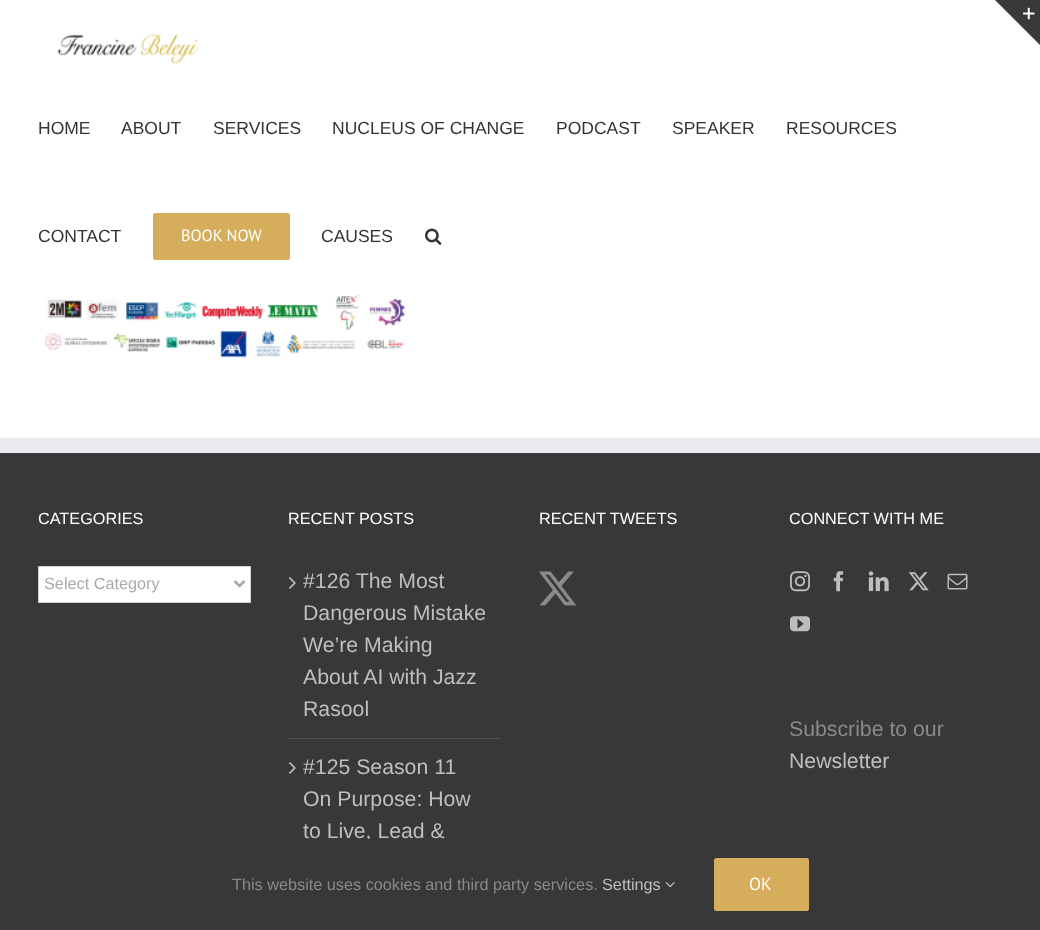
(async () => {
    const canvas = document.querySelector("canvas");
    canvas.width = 1040;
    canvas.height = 930;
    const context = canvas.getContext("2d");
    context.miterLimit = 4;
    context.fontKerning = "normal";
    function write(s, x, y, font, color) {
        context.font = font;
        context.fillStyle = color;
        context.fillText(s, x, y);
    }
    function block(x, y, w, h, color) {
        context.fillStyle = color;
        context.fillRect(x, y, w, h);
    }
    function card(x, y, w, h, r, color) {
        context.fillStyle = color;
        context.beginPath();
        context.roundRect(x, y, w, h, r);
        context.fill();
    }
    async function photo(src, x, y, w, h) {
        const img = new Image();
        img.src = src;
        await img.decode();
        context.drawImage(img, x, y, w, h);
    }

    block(0, 0, 1040, 930, "rgb(255, 255, 255)");
    context.fillStyle = "rgb(54, 56, 57)";
    context.beginPath();
    context.moveTo(995, 0);
    context.lineTo(1040, 0);
    context.lineTo(1040, 45);
    context.closePath();
    context.fill();
    await photo("media/1.png", 1023, 7, 12, 13);
    await photo("media/2.png", 57, 33, 142, 31);
    write("HOME", 38, 134, "17.5px Liberation Sans", "rgb(51, 51, 51)");
    write("ABOUT", 121, 134, "17.5px Liberation Sans", "rgb(51, 51, 51)");
    write("SERVICES", 213, 134, "17.5px Liberation Sans", "rgb(51, 51, 51)");
    write("NUCLEUS OF CHANGE", 332, 134, "17.5px Liberation Sans", "rgb(51, 51, 51)");
    write("PODCAST", 556, 134, "17.5px Liberation Sans", "rgb(51, 51, 51)");
    write("SPEAKER", 672, 134, "17.5px Liberation Sans", "rgb(51, 51, 51)");
    write("RESOURCES", 786, 134, "17.5px Liberation Sans", "rgb(51, 51, 51)");
    write("CONTACT", 38, 242, "17.5px Liberation Sans", "rgb(51, 51, 51)");
    card(153, 213, 137, 47, 2.5, "rgb(214, 173, 90)");
    write("BOOK NOW", 181, 241, "16.25px PT Sans", "rgb(255, 255, 255)");
    write("CAUSES", 321, 242, "17.5px Liberation Sans", "rgb(51, 51, 51)");
    await photo("media/3.png", 425, 228, 17, 17);
    await photo("media/4.png", 45, 294, 361, 64);
    block(0, 453, 1040, 386, "rgb(54, 56, 57)");
    block(0, 438, 1040, 15, "rgb(233, 234, 238)");
    write("CATEGORIES", 38, 524, "16.25px Liberation Sans", "rgb(255, 255, 255)");
    context.beginPath();
    context.rect(38.5, 566.5, 212, 36);
    context.fill();
    context.strokeStyle = "rgb(210, 210, 210)";
    context.stroke();
    context.beginPath();
    context.moveTo(234.5, 581);
    context.lineTo(239.5, 586);
    context.lineTo(244.5, 581);
    context.strokeStyle = "rgb(170, 169, 169)";
    context.lineWidth = 2.5;
    context.stroke();
    write("Select Category", 44, 589, "16.25px Liberation Sans", "rgb(170, 169, 169)");
    write("RECENT POSTS", 288, 524, "16.25px Liberation Sans", "rgb(255, 255, 255)");
    block(289, 738, 212, 1, "rgb(80, 81, 82)");
    await photo("media/5.png", 289, 577, 7, 12);
    write("#126 The Most", 303, 588, "21.25px Liberation Sans", "rgb(191, 191, 191)");
    write("Dangerous Mistake", 303, 620, "21.25px Liberation Sans", "rgb(191, 191, 191)");
    write("We’re Making", 303, 652, "21.25px Liberation Sans", "rgb(191, 191, 191)");
    write("About AI with Jazz", 303, 684, "21.25px Liberation Sans", "rgb(191, 191, 191)");
    write("Rasool", 303, 716, "21.25px Liberation Sans", "rgb(191, 191, 191)");
    await photo("media/5.png", 289, 762, 7, 12);
    write("#125 Season 11", 303, 774, "21.25px Liberation Sans", "rgb(191, 191, 191)");
    write("On Purpose: How", 303, 806, "21.25px Liberation Sans", "rgb(191, 191, 191)");
    write("to Live, Lead &", 303, 838, "21.25px Liberation Sans", "rgb(191, 191, 191)");
    write("RECENT TWEETS", 539, 524, "16.25px Liberation Sans", "rgb(255, 255, 255)");
    await photo("media/6.png", 539, 571, 37, 35);
    write("CONNECT WITH ME", 789, 524, "16.25px Liberation Sans", "rgb(255, 255, 255)");
    await photo("media/7.png", 790, 571, 20, 21);
    await photo("media/8.png", 833, 571, 11, 21);
    await photo("media/9.png", 868, 571, 21, 21);
    await photo("media/10.png", 908, 572, 21, 19);
    await photo("media/11.png", 947, 573, 21, 17);
    await photo("media/12.png", 790, 616, 20, 16);
    write("Subscribe to our", 789, 736, "21.25px Liberation Sans", "rgb(140, 137, 137)");
    write("Newsletter", 789, 768, "21.25px Liberation Sans", "rgb(191, 191, 191)");
    block(0, 839, 1040, 91, "rgb(54, 56, 57)");
    write("This website uses cookies and third party services.", 232, 890, "16.25px Liberation Sans", "rgb(140, 137, 137)");
    write("Settings", 602, 890, "16.25px Liberation Sans", "rgb(191, 191, 191)");
    await photo("media/13.png", 665, 882, 10, 6);
    card(714, 858, 95, 53, 2.5, "rgb(214, 173, 90)");
    write("OK", 749, 890, "17.5px PT Sans", "rgb(255, 255, 255)");
})();
